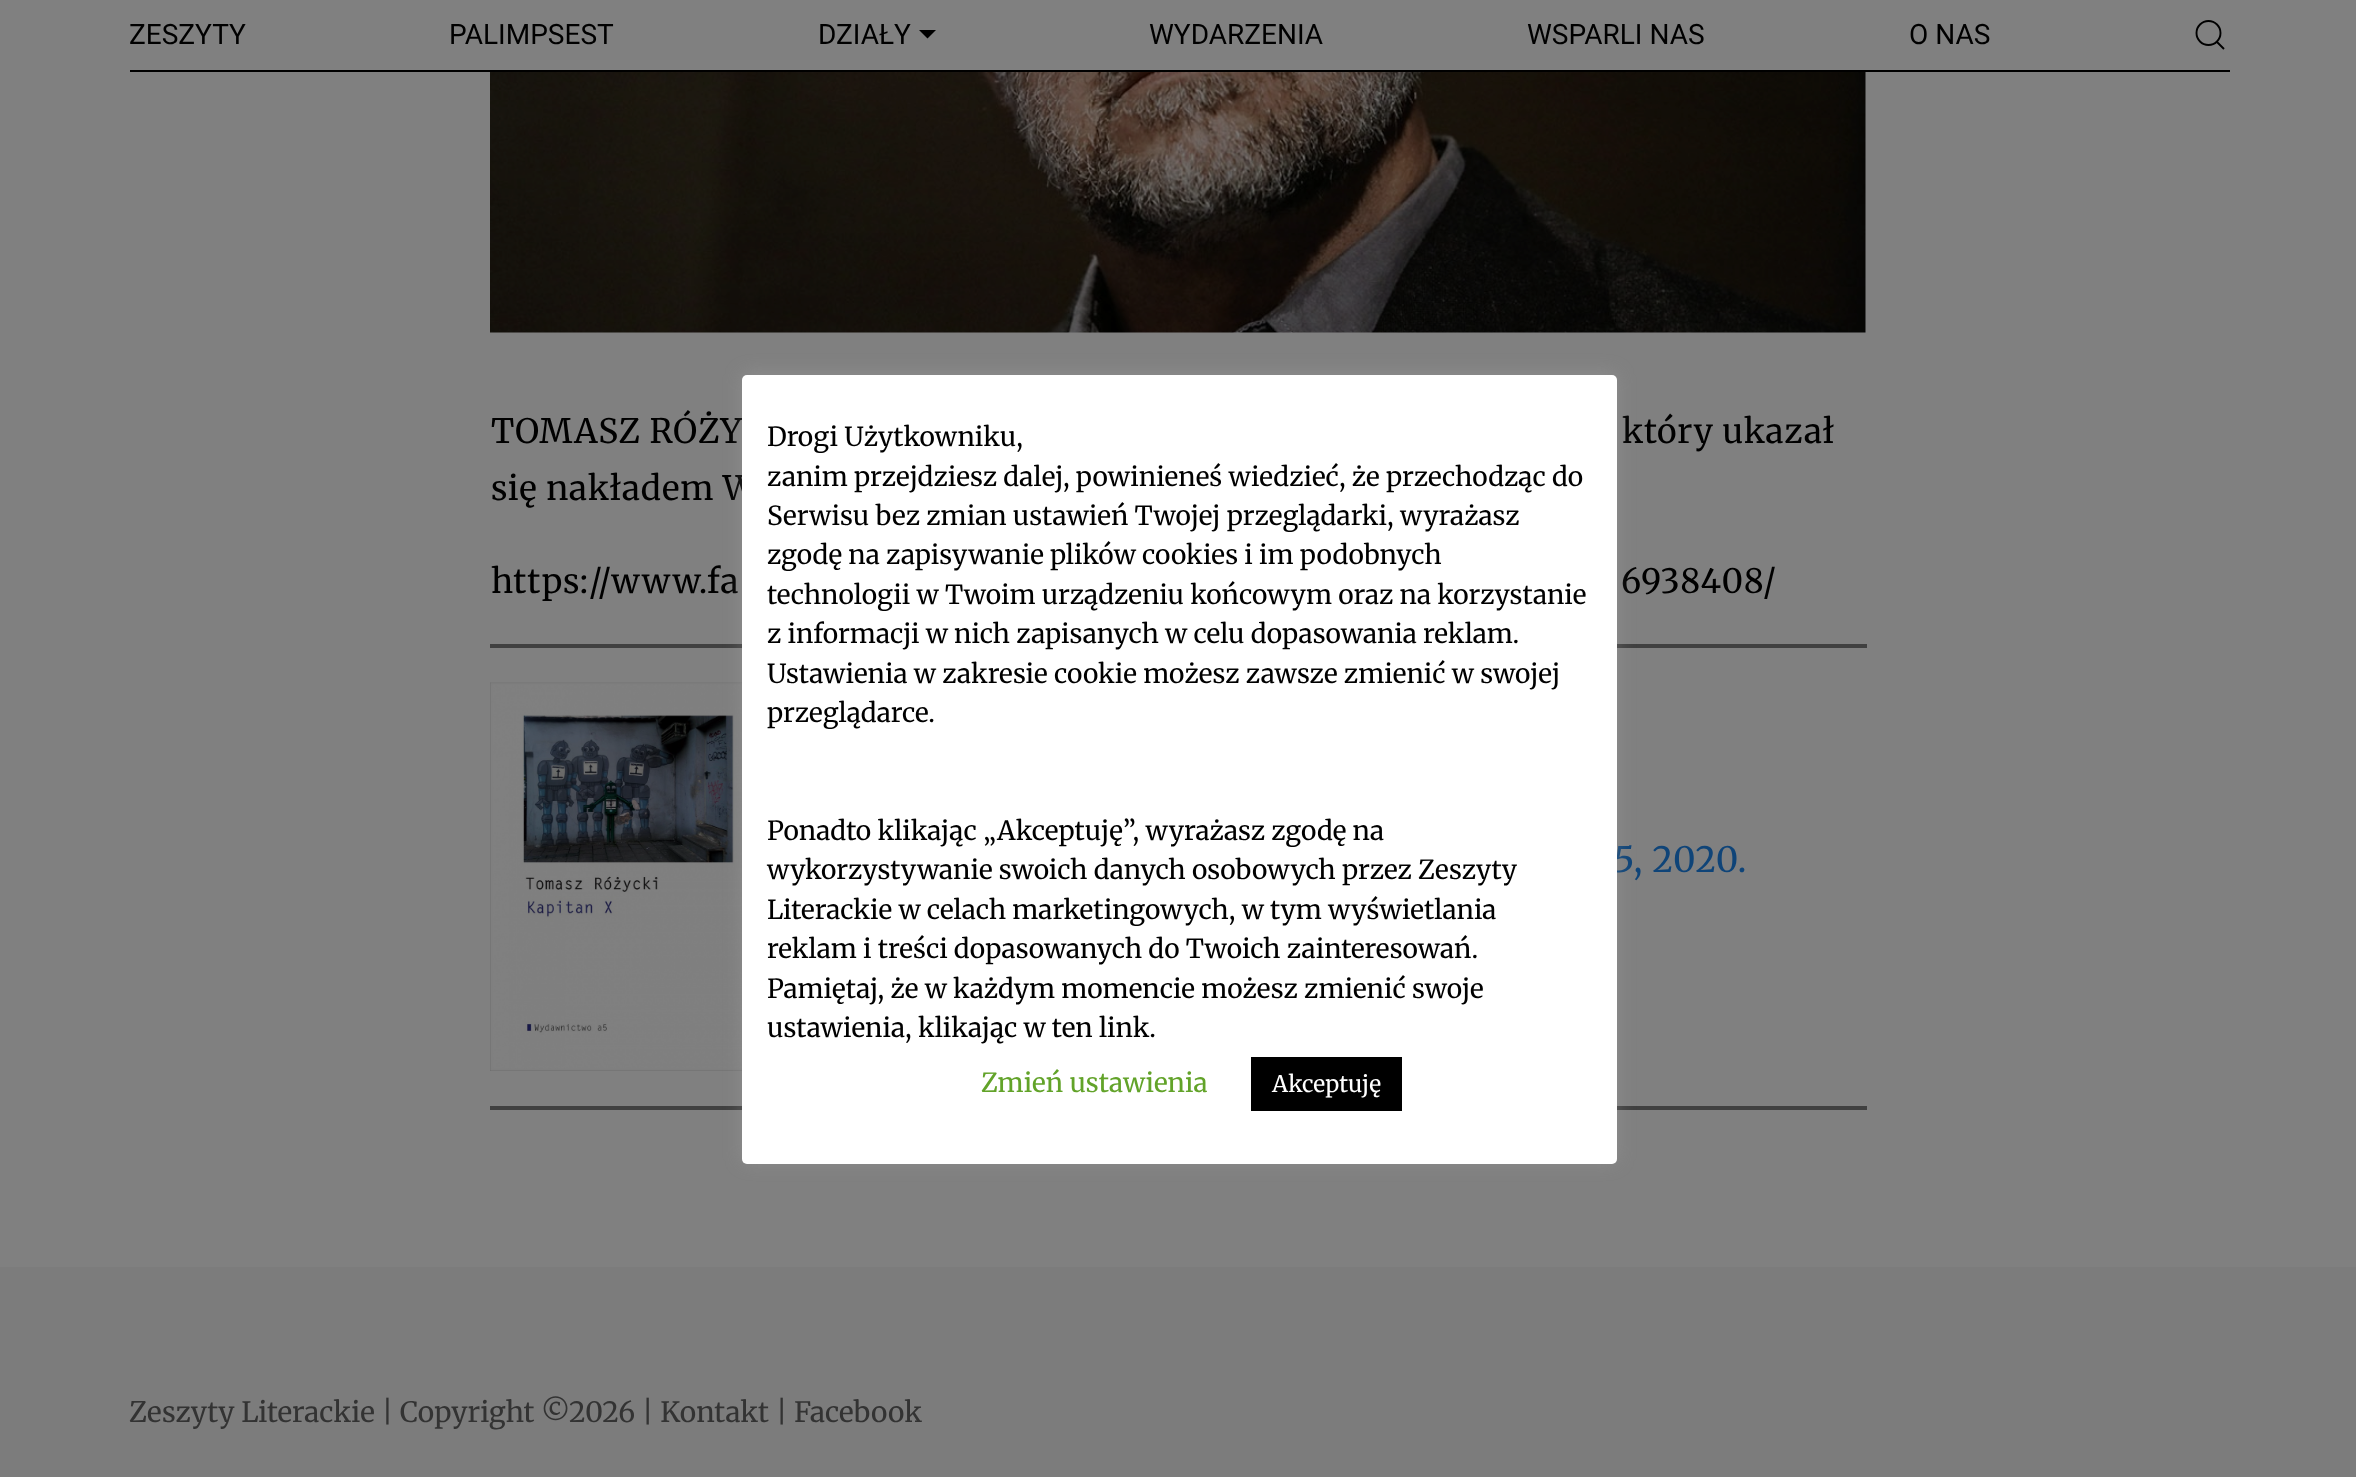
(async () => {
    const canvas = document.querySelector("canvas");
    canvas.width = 2356;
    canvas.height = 1477;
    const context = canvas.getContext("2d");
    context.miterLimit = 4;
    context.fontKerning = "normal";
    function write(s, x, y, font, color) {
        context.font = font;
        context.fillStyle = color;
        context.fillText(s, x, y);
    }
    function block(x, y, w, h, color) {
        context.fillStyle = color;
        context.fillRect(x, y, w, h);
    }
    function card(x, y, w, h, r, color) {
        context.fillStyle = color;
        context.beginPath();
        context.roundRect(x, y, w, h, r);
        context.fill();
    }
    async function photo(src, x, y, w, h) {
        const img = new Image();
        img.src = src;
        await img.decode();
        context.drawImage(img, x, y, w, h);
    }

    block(0, 0, 2356, 1477, "rgb(128, 128, 128)");
    block(130, 70, 2100, 2, "rgb(0, 0, 0)");
    write("ZESZYTY", 129, 44, "28px Roboto", "rgb(0, 0, 0)");
    write("PALIMPSEST", 449, 44, "28px Roboto", "rgb(0, 0, 0)");
    write("DZIAŁY", 818, 44, "28px Roboto", "rgb(0, 0, 0)");
    context.beginPath();
    context.moveTo(919, 30);
    context.lineTo(936, 30);
    context.lineTo(927.5, 38.5);
    context.closePath();
    context.fill();
    write("WYDARZENIA", 1149, 44, "28px Roboto", "rgb(0, 0, 0)");
    write("WSPARLI NAS", 1527, 44, "28px Roboto", "rgb(0, 0, 0)");
    write("O NAS", 1909, 44, "28px Roboto", "rgb(0, 0, 0)");
    context.beginPath();
    context.arc(2208.5, 33, 12, 0, Math.PI * 2);
    context.strokeStyle = "rgb(0, 0, 0)";
    context.lineWidth = 1.9;
    context.stroke();
    context.beginPath();
    context.moveTo(2217, 42);
    context.lineTo(2224, 49);
    context.closePath();
    context.stroke();
    await photo("media/1.png", 490, 72, 1376, 261);
    context.letterSpacing = "0.7px";
    write("TOMASZ RÓŻY", 491, 443, "33.5px Merriweather", "rgb(0, 0, 0)");
    write("który ukazał", 1622, 443, "33.5px Merriweather", "rgb(0, 0, 0)");
    write("się nakładem W", 491, 500, "33.5px Merriweather", "rgb(0, 0, 0)");
    write("https://www.fa", 491, 593, "33.5px Merriweather", "rgb(0, 0, 0)");
    write("6938408/", 1621, 593, "33.5px Merriweather", "rgb(0, 0, 0)");
    block(490, 644, 1377, 4, "rgb(64, 64, 64)");
    await photo("media/2.png", 490, 682, 252, 389);
    write("5, 2020.", 1614, 872, "35px Merriweather", "rgb(15, 68, 120)");
    block(490, 1106, 1377, 4, "rgb(64, 64, 64)");
    context.fillStyle = "rgba(172, 171, 171, 0.3)";
    context.filter = "blur(9px)";
    context.beginPath();
    context.roundRect(742, 373, 875, 789, 5);
    context.fill();
    context.filter = "none";
    card(742, 375, 875, 789, 5, "rgb(255, 255, 255)");
    context.letterSpacing = "0px";
    write("Drogi Użytkowniku,", 767, 446, "26.25px Merriweather", "rgb(0, 0, 0)");
    write("zanim przejdziesz dalej, powinieneś wiedzieć, że przechodząc do", 767, 486, "26.25px Merriweather", "rgb(0, 0, 0)");
    write("Serwisu bez zmian ustawień Twojej przeglądarki, wyrażasz", 767, 525, "26.25px Merriweather", "rgb(0, 0, 0)");
    write("zgodę na zapisywanie plików cookies i im podobnych", 767, 564, "26.25px Merriweather", "rgb(0, 0, 0)");
    write("technologii w Twoim urządzeniu końcowym oraz na korzystanie", 767, 604, "26.25px Merriweather", "rgb(0, 0, 0)");
    write("z informacji w nich zapisanych w celu dopasowania reklam.", 767, 643, "26.25px Merriweather", "rgb(0, 0, 0)");
    write("Ustawienia w zakresie cookie możesz zawsze zmienić w swojej", 767, 683, "26.25px Merriweather", "rgb(0, 0, 0)");
    write("przeglądarce.", 767, 722, "26.25px Merriweather", "rgb(0, 0, 0)");
    write("Ponadto klikając „Akceptuję”, wyrażasz zgodę na", 767, 840, "26.25px Merriweather", "rgb(0, 0, 0)");
    write("wykorzystywanie swoich danych osobowych przez Zeszyty", 767, 879, "26.25px Merriweather", "rgb(0, 0, 0)");
    write("Literackie w celach marketingowych, w tym wyświetlania", 767, 919, "26.25px Merriweather", "rgb(0, 0, 0)");
    write("reklam i treści dopasowanych do Twoich zainteresowań.", 767, 958, "26.25px Merriweather", "rgb(0, 0, 0)");
    write("Pamiętaj, że w każdym momencie możesz zmienić swoje", 767, 998, "26.25px Merriweather", "rgb(0, 0, 0)");
    write("ustawienia, klikając w ten link.", 767, 1037, "26.25px Merriweather", "rgb(0, 0, 0)");
    write("Zmień ustawienia", 981, 1092, "26.25px Merriweather", "rgb(98, 163, 41)");
    block(1251, 1057, 151, 54, "rgb(0, 0, 0)");
    write("Akceptuję", 1272, 1092, "22.75px Merriweather", "rgb(255, 255, 255)");
    block(0, 1267, 2356, 210, "rgb(124, 124, 124)");
    write("Zeszyty Literackie | Copyright ©2026 | Kontakt | Facebook", 129, 1422, "28px Merriweather", "rgb(51, 51, 51)");
})();
